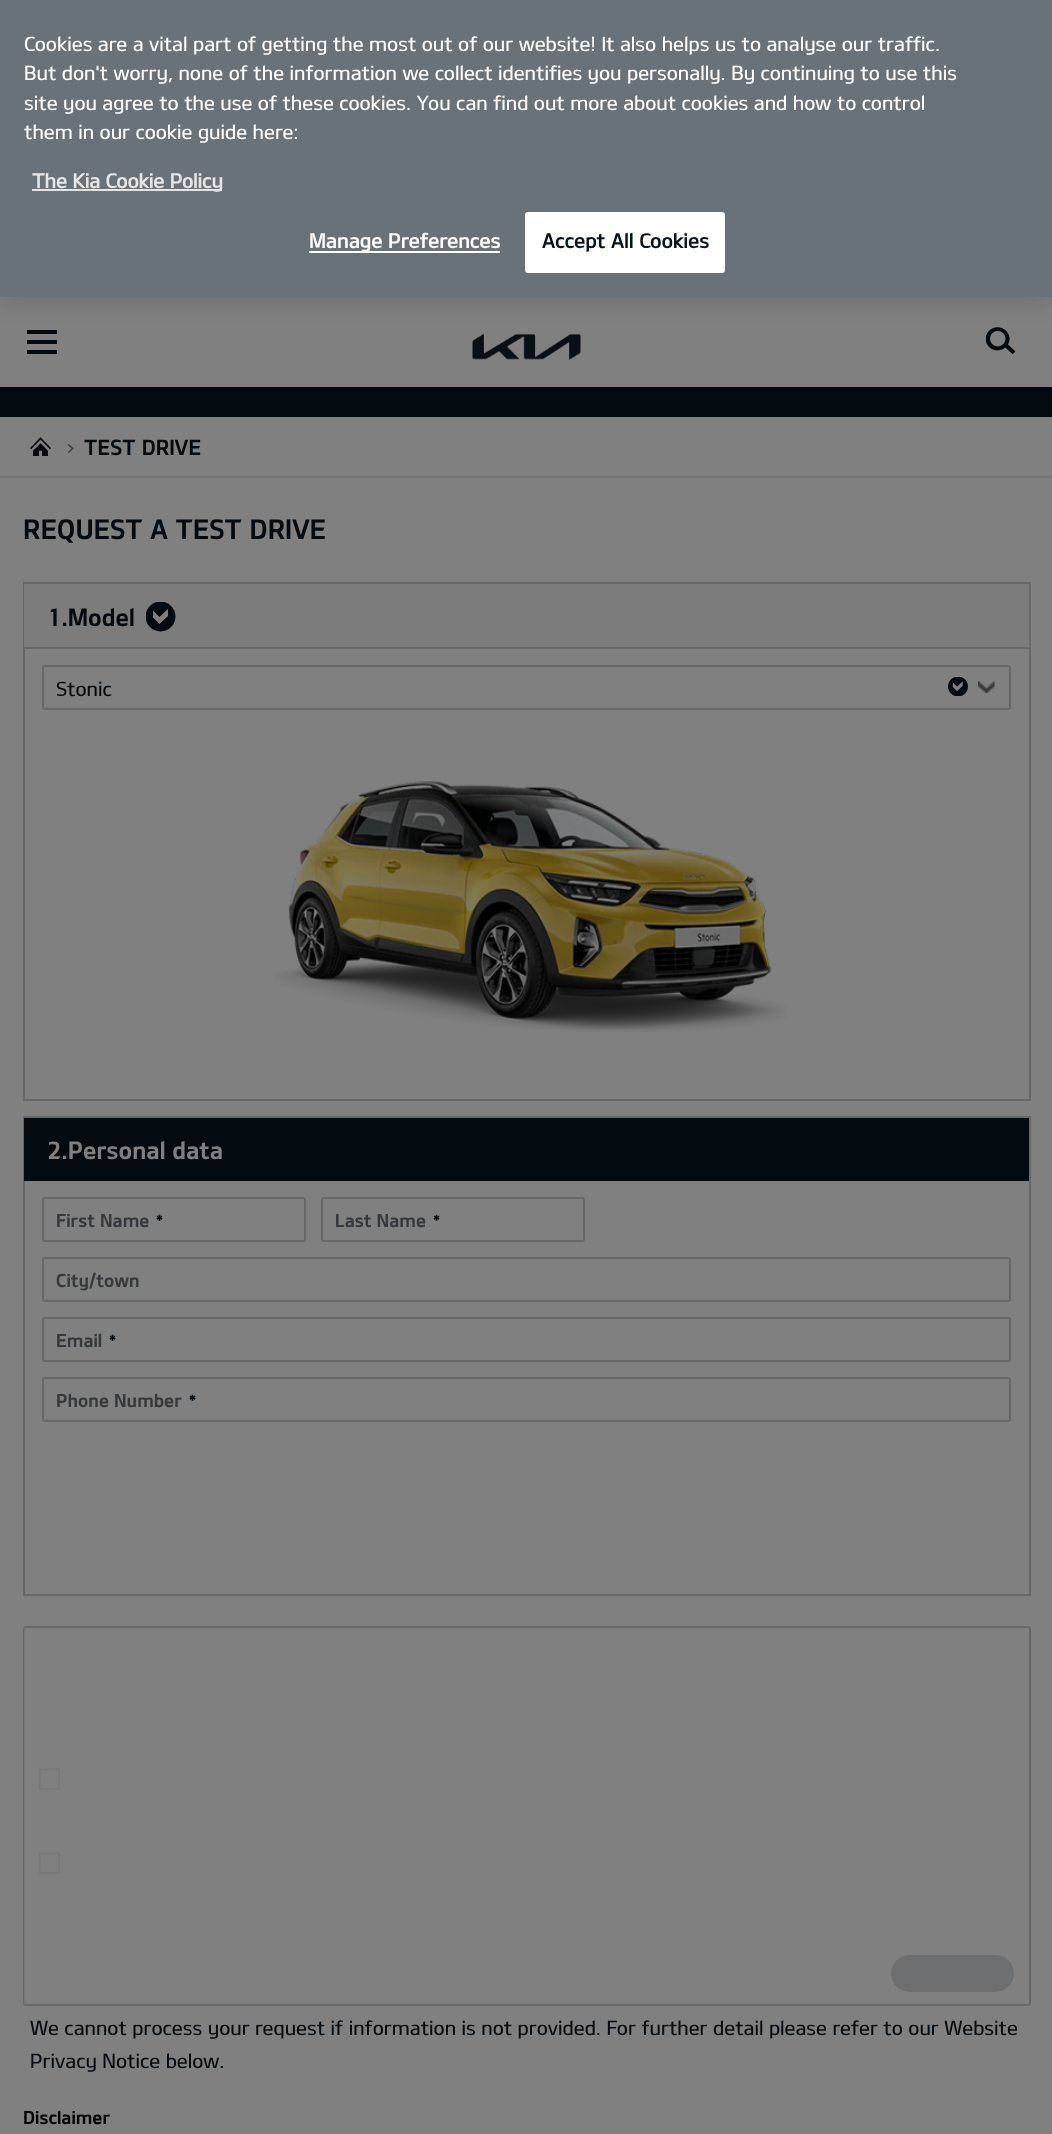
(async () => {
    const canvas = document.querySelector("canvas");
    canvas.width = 1052;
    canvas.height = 2134;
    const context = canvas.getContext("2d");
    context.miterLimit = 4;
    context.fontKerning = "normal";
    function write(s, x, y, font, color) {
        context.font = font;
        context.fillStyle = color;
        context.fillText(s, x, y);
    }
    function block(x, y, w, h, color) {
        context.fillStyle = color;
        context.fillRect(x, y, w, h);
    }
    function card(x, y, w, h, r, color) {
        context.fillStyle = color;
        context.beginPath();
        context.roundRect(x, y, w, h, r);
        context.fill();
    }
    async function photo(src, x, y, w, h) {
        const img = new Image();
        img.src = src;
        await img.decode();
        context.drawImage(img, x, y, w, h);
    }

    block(0, 0, 1052, 2134, "rgb(128, 128, 128)");
    context.save();
    context.beginPath();
    context.rect(27, 330, 30, 24);
    context.clip();
    context.fillStyle = "rgb(3, 10, 16)";
    context.beginPath();
    context.moveTo(27, 330);
    context.lineTo(67, 330);
    context.lineTo(67, 334);
    context.lineTo(27, 334);
    context.closePath();
    context.moveTo(27, 350);
    context.lineTo(67, 350);
    context.lineTo(67, 354);
    context.lineTo(27, 354);
    context.closePath();
    context.moveTo(27, 340);
    context.lineTo(67, 340);
    context.lineTo(67, 344);
    context.lineTo(27, 344);
    context.closePath();
    context.fill("evenodd");
    context.restore();
    await photo("media/1.png", 472, 333, 109, 27);
    await photo("media/2.png", 986, 327, 30, 27);
    context.fillStyle = "rgba(0, 0, 0, 0.2)";
    context.filter = "blur(13.5px)";
    context.beginPath();
    context.rect(0, 0, 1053, 297);
    context.fill();
    context.filter = "none";
    block(0, 0, 1052, 297, "rgb(105, 114, 121)");
    write("Cookies are a vital part of getting the most out of our website! It also helps us to analyse our traffic.", 24, 51, "19.5px 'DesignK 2'", "rgb(255, 255, 255)");
    write("But don't worry, none of the information we collect identifies you personally. By continuing to use this", 24, 80, "19.5px 'DesignK 2'", "rgb(255, 255, 255)");
    write("site you agree to the use of these cookies. You can find out more about cookies and how to control", 24, 110, "19.5px 'DesignK 2'", "rgb(255, 255, 255)");
    write("them in our cookie guide here:", 24, 139, "19.5px 'DesignK 2'", "rgb(255, 255, 255)");
    block(32, 189, 190, 2, "rgb(229, 229, 229)");
    write("The Kia Cookie Policy", 32, 188, "bold 19.5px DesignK", "rgb(229, 229, 229)");
    block(309, 251, 191, 2, "rgb(255, 255, 255)");
    context.letterSpacing = "0.25px";
    write("Manage Preferences", 309, 248, "bold 19.5px DesignK", "rgb(255, 255, 255)");
    context.beginPath();
    context.roundRect(526, 213, 198, 59, 2);
    context.fill();
    context.strokeStyle = "rgb(255, 255, 255)";
    context.lineWidth = 2;
    context.stroke();
    write("Accept All Cookies", 542, 248, "bold 19.5px DesignK", "rgb(5, 20, 31)");
    block(0, 387, 1052, 30, "rgb(3, 10, 16)");
    block(0, 476, 1052, 2, "rgb(117, 117, 117)");
    await photo("media/3.png", 30, 437, 21, 19);
    await photo("media/4.png", 67, 444, 7, 9);
    context.letterSpacing = "0px";
    write("TEST DRIVE", 84, 455, "21px DesignK", "rgb(3, 10, 16)");
    write("REQUEST A TEST DRIVE", 23, 539, "27px DesignK", "rgb(3, 10, 16)");
    context.strokeStyle = "rgb(103, 104, 105)";
    context.strokeRect(24, 583, 1006, 517);
    block(24, 584, 1005, 63, "rgb(124, 124, 124)");
    block(24, 647, 1005, 2, "rgb(103, 104, 105)");
    write("1.Model", 47, 626, "24px DesignK", "rgb(3, 10, 16)");
    context.save();
    context.beginPath();
    context.rect(146, 602, 30, 30);
    context.clip();
    context.beginPath();
    context.arc(160.5, 616.5, 15, 0, Math.PI * 2);
    context.fill();
    context.restore();
    context.fillStyle = "rgb(128, 128, 128)";
    context.beginPath();
    context.moveTo(153, 610.5);
    context.lineTo(159.5, 617);
    context.lineTo(168, 609);
    context.lineTo(168, 616);
    context.lineTo(159.5, 624);
    context.lineTo(153, 617.5);
    context.closePath();
    context.fill("evenodd");
    context.beginPath();
    context.roundRect(43, 666, 967, 43, 2);
    context.stroke();
    write("Stonic", 56, 696, "19.5px 'DesignK 2'", "rgb(3, 10, 16)");
    await photo("media/5.png", 948, 677, 20, 19);
    await photo("media/6.png", 978, 681, 17, 12);
    await photo("media/7.png", 275, 781, 512, 251);
    context.strokeRect(24, 1117, 1006, 478);
    block(24, 1118, 1005, 63, "rgb(3, 10, 16)");
    write("2.Personal data", 47, 1159, "24px DesignK", "rgb(128, 128, 128)");
    context.beginPath();
    context.roundRect(43, 1198, 262, 43, 2);
    context.stroke();
    write("First Name", 56, 1227, "18px DesignK", "rgb(53, 57, 61)");
    write("*", 156, 1229, "18px DesignK", "rgb(3, 10, 16)");
    context.beginPath();
    context.roundRect(322, 1198, 262, 43, 2);
    context.stroke();
    write("Last Name", 335, 1227, "18px DesignK", "rgb(53, 57, 61)");
    write("*", 433, 1229, "18px DesignK", "rgb(3, 10, 16)");
    context.beginPath();
    context.roundRect(43, 1258, 967, 43, 2);
    context.stroke();
    write("City/town", 56, 1287, "18px DesignK", "rgb(53, 57, 61)");
    context.beginPath();
    context.roundRect(43, 1318, 967, 43, 2);
    context.stroke();
    write("Email", 56, 1347, "18px DesignK", "rgb(53, 57, 61)");
    write("*", 109, 1349, "18px DesignK", "rgb(3, 10, 16)");
    context.beginPath();
    context.roundRect(43, 1378, 967, 43, 2);
    context.stroke();
    write("Phone Number", 56, 1407, "18px DesignK", "rgb(53, 57, 61)");
    write("*", 189, 1409, "18px DesignK", "rgb(3, 10, 16)");
    context.beginPath();
    context.roundRect(24, 1627, 1006, 378, 2);
    context.stroke();
    await photo("media/8.png", 39, 1768, 21, 22);
    await photo("media/8.png", 39, 1852, 21, 22);
    card(891, 1955, 123, 37, 18.5, "rgb(65, 69, 72)");
    card(24, 1628, 1005, 376, 1.5, "rgba(128, 128, 128, 0.7)");
    write("We cannot process your request if information is not provided. For further detail please refer to our Website", 30, 2035, "19.5px 'DesignK 2'", "rgb(3, 10, 16)");
    write("Privacy Notice below.", 30, 2068, "19.5px 'DesignK 2'", "rgb(3, 10, 16)");
    write("Disclaimer", 23, 2124, "18px DesignK", "rgb(0, 0, 0)");
})();
